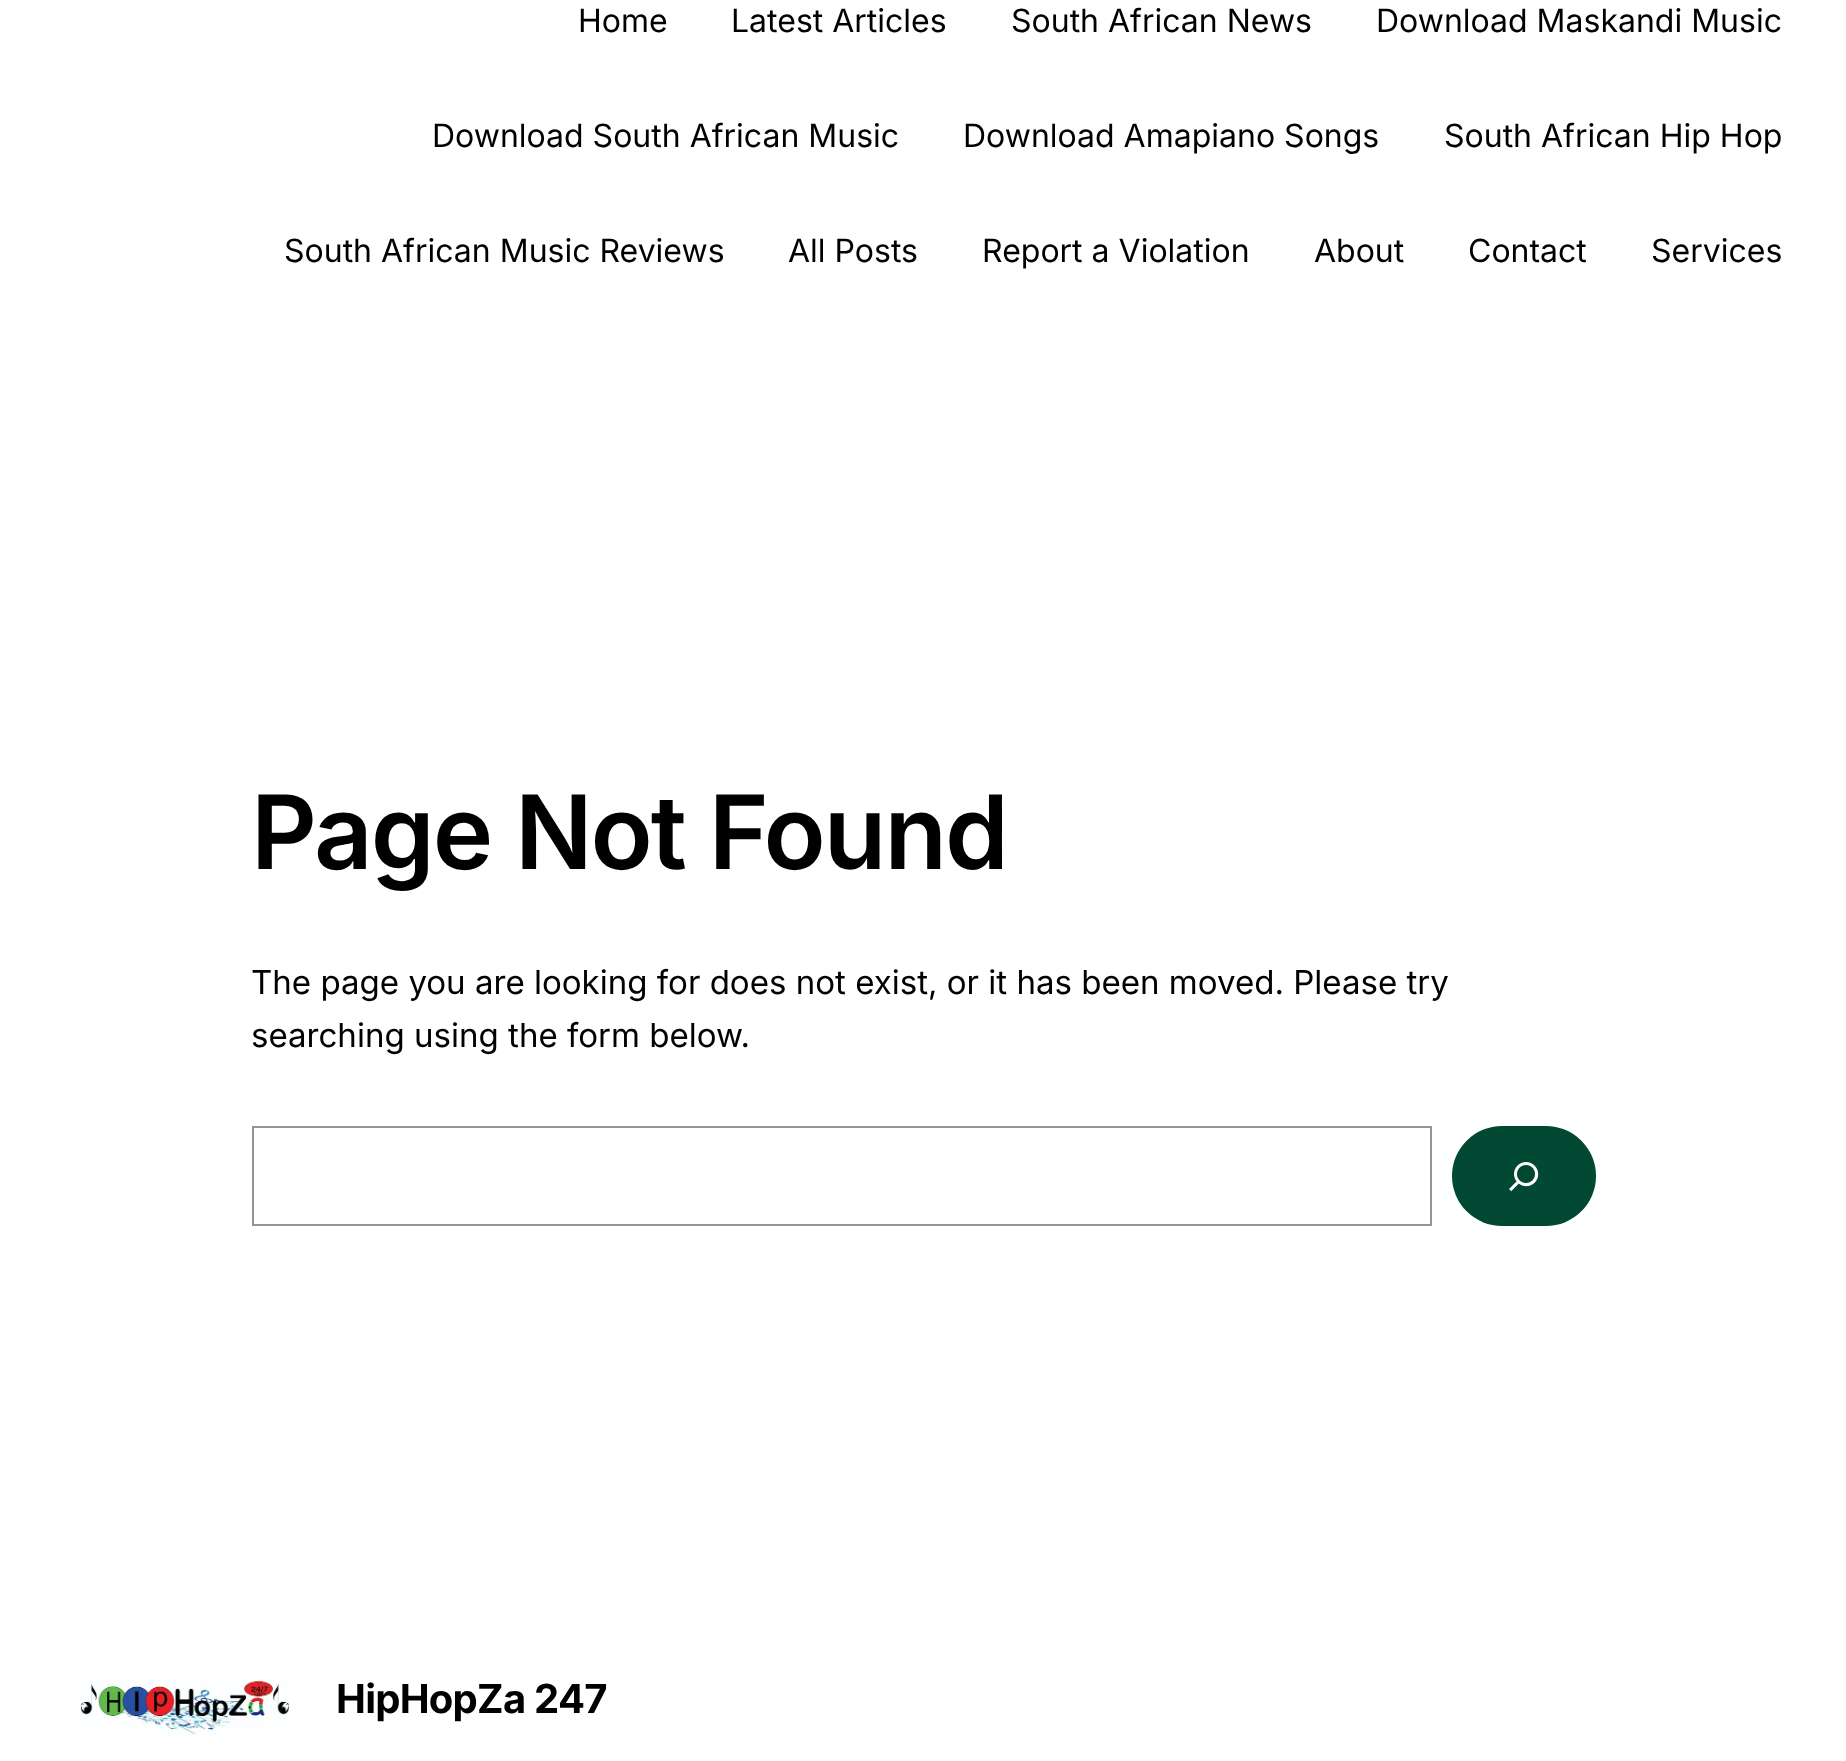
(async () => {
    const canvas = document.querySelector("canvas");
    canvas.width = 1846;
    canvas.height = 1761;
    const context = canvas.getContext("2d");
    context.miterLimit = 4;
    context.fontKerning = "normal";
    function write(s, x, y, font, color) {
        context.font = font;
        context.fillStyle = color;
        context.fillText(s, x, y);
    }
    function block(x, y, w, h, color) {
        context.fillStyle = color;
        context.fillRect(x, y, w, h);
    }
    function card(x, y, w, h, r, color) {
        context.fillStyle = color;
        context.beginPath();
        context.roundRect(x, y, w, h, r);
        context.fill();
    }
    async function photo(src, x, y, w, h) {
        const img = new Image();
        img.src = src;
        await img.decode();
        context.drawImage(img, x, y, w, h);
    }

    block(0, 0, 1846, 1761, "rgb(255, 255, 255)");
    write("Home", 578, 32, "32px Inter", "rgb(0, 0, 0)");
    write("Latest Articles", 731, 32, "32px Inter", "rgb(0, 0, 0)");
    write("South African News", 1011, 32, "32px Inter", "rgb(0, 0, 0)");
    write("Download Maskandi Music", 1376, 32, "32px Inter", "rgb(0, 0, 0)");
    write("Download South African Music", 432, 147, "32px Inter", "rgb(0, 0, 0)");
    write("Download Amapiano Songs", 963, 147, "32px Inter", "rgb(0, 0, 0)");
    write("South African Hip Hop", 1444, 147, "32px Inter", "rgb(0, 0, 0)");
    write("South African Music Reviews", 284, 262, "32px Inter", "rgb(0, 0, 0)");
    write("All Posts", 788, 262, "32px Inter", "rgb(0, 0, 0)");
    write("Report a Violation", 982, 262, "32px Inter", "rgb(0, 0, 0)");
    write("About", 1314, 262, "32px Inter", "rgb(0, 0, 0)");
    write("Contact", 1468, 262, "32px Inter", "rgb(0, 0, 0)");
    write("Services", 1651, 262, "32px Inter", "rgb(0, 0, 0)");
    context.letterSpacing = "-2px";
    write("Page Not Found", 251, 869, "600 102.25px Inter", "rgb(0, 0, 0)");
    context.letterSpacing = "0px";
    write("The page you are looking for does not exist, or it has been moved. Please try", 251, 994, "33.05px Inter", "rgb(0, 0, 0)");
    write("searching using the form below.", 251, 1047, "33.05px Inter", "rgb(0, 0, 0)");
    context.strokeStyle = "rgb(148, 148, 148)";
    context.lineWidth = 2;
    context.strokeRect(253, 1127, 1178, 98);
    card(1452, 1126, 144, 100, 50, "rgb(1, 73, 50)");
    await photo("media/1.png", 1509, 1162, 30, 30);
    await photo("media/2.png", 79, 1680, 210, 55);
    context.letterSpacing = "-0.75px";
    write("HipHopZa 247", 336, 1713, "bold 40px Inter", "rgb(0, 0, 0)");
})();
